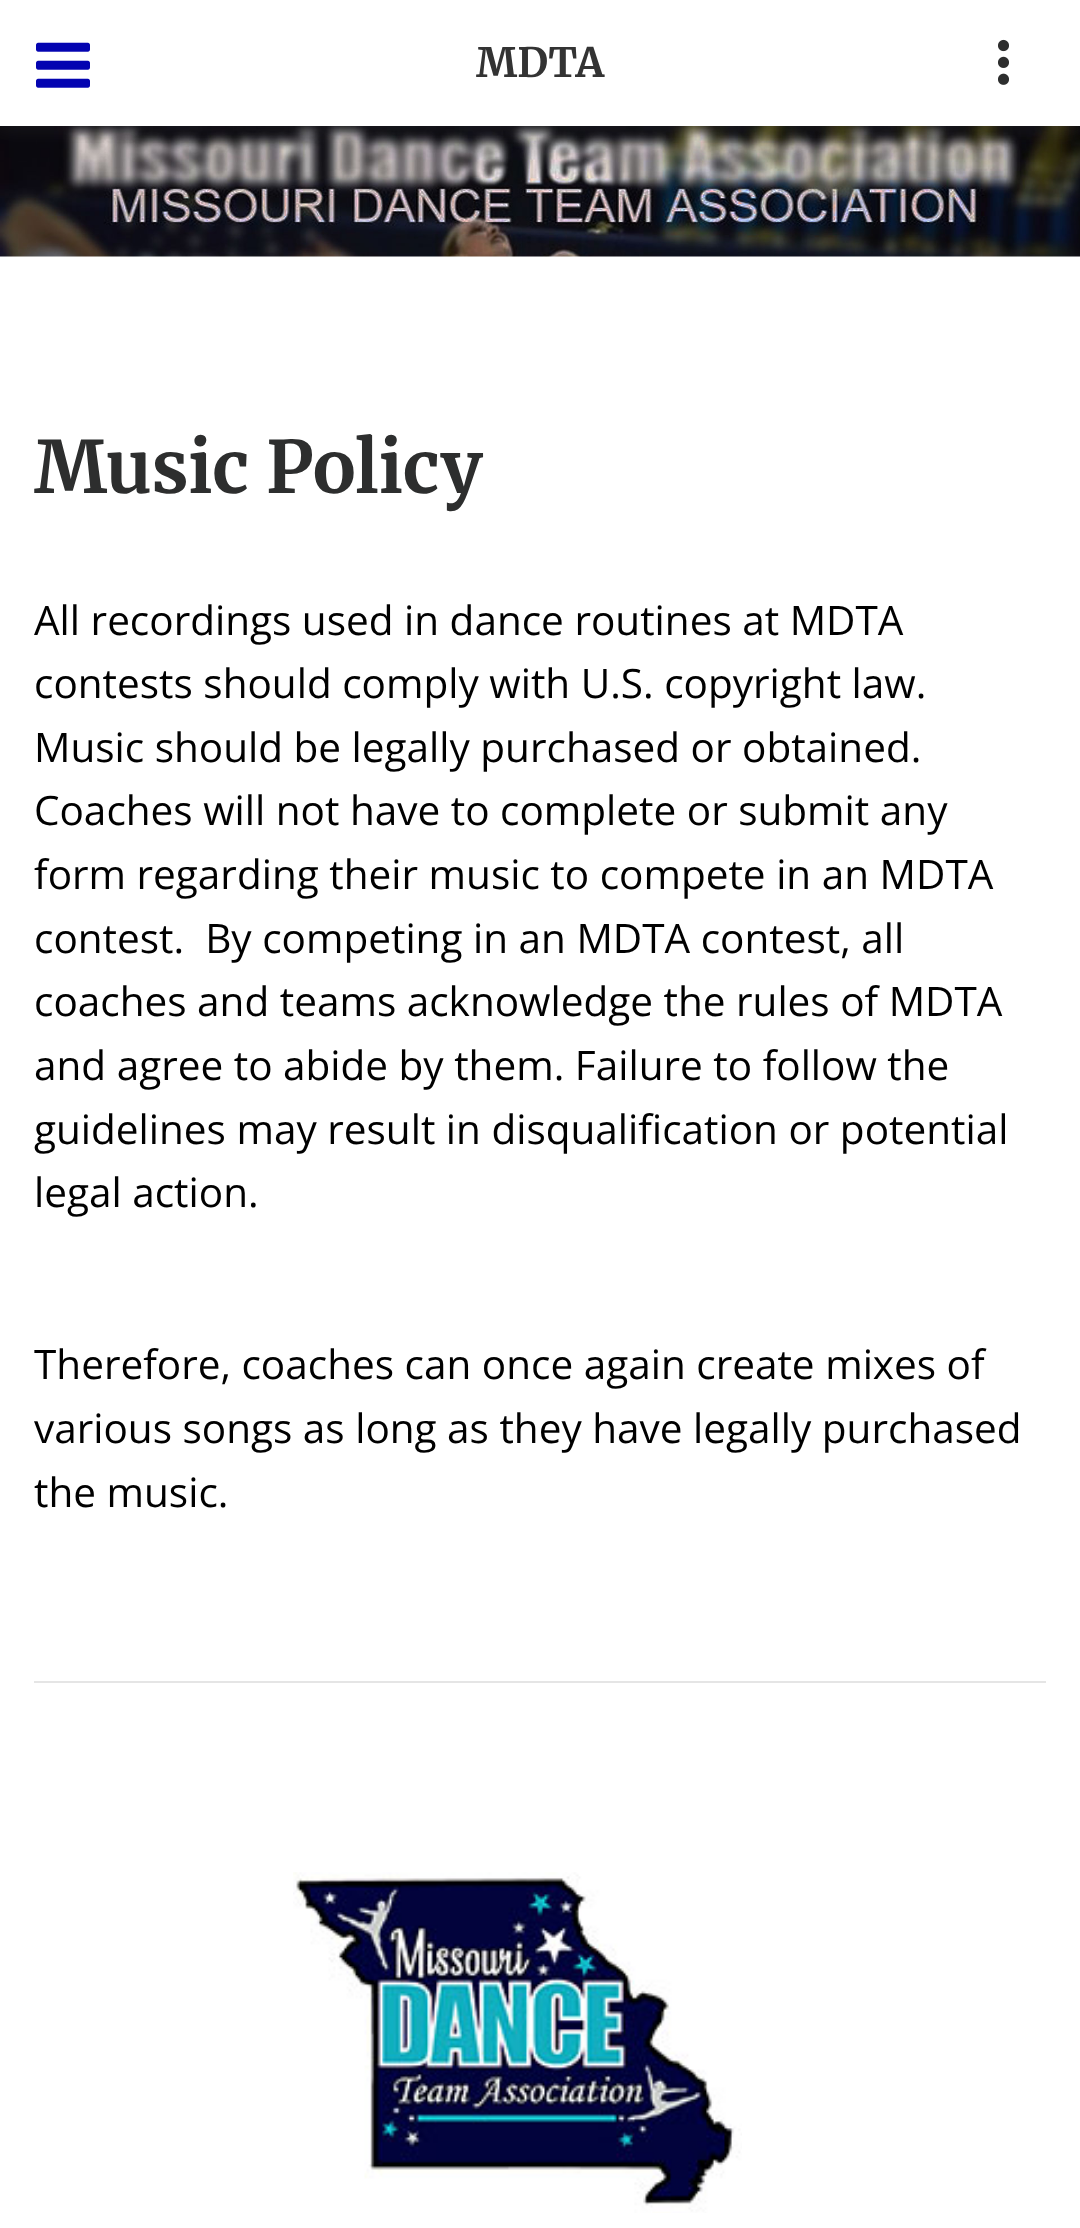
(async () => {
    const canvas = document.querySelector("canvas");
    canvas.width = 1080;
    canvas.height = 2228;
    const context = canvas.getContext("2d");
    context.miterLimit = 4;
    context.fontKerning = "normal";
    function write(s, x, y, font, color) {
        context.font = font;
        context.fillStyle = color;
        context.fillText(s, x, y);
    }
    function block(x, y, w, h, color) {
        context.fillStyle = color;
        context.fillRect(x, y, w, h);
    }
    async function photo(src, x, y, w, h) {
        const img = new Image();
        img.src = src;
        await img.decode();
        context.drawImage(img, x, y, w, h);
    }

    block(0, 0, 1080, 2228, "rgb(255, 255, 255)");
    await photo("media/3.png", 0, 126, 1080, 131);
    context.save();
    context.beginPath();
    context.rect(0, 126, 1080, 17);
    context.clip();
    context.fillStyle = "rgba(67, 67, 69, 0.35)";
    context.filter = "blur(11px)";
    context.beginPath();
    context.rect(0, 0, 1080, 126);
    context.fill();
    context.filter = "none";
    context.restore();
    await photo("media/1.png", 36, 42, 54, 46);
    write("MDTA", 476, 77, "bold 40.5px Merriweather", "rgb(51, 51, 51)");
    await photo("media/2.png", 998, 39, 11, 46);
    write("Music Policy", 34, 493, "bold 72px Merriweather", "rgb(45, 46, 46)");
    write("All recordings used in dance routines at MDTA", 34, 635, "40.5px Open Sans", "rgb(0, 0, 0)");
    write("contests should comply with U.S. copyright law.", 34, 698, "40.5px Open Sans", "rgb(0, 0, 0)");
    write("Music should be legally purchased or obtained.", 34, 762, "40.5px Open Sans", "rgb(0, 0, 0)");
    write("Coaches will not have to complete or submit any", 34, 825, "40.5px Open Sans", "rgb(0, 0, 0)");
    write("form regarding their music to compete in an MDTA", 34, 889, "40.5px Open Sans", "rgb(0, 0, 0)");
    write("contest.  By competing in an MDTA contest, all", 34, 953, "40.5px Open Sans", "rgb(0, 0, 0)");
    write("coaches and teams acknowledge the rules of MDTA", 34, 1016, "40.5px Open Sans", "rgb(0, 0, 0)");
    write("and agree to abide by them. Failure to follow the", 34, 1080, "40.5px Open Sans", "rgb(0, 0, 0)");
    write("guidelines may result in disqualification or potential", 34, 1144, "40.5px Open Sans", "rgb(0, 0, 0)");
    write("legal action.", 34, 1207, "40.5px Open Sans", "rgb(0, 0, 0)");
    write("Therefore, coaches can once again create mixes of", 34, 1379, "40.5px Open Sans", "rgb(0, 0, 0)");
    write("various songs as long as they have legally purchased", 34, 1443, "40.5px Open Sans", "rgb(0, 0, 0)");
    write("the music.", 34, 1507, "40.5px Open Sans", "rgb(0, 0, 0)");
    block(34, 1681, 1012, 2, "rgb(229, 229, 229)");
    await photo("media/4.png", 293, 1872, 449, 341);
})();
